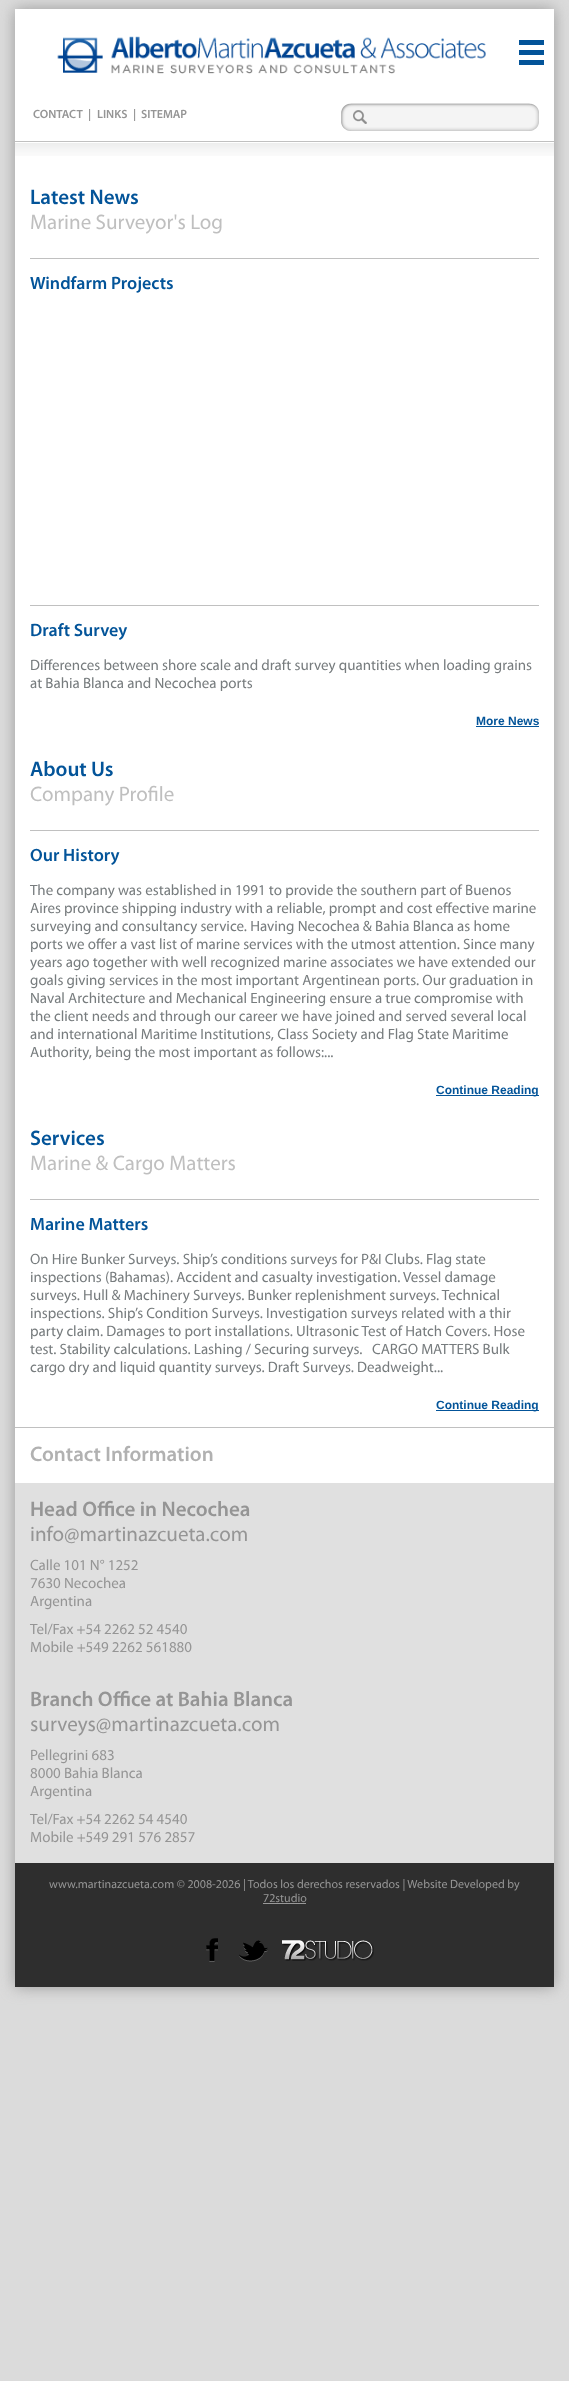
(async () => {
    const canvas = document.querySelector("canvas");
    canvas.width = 569;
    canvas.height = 2381;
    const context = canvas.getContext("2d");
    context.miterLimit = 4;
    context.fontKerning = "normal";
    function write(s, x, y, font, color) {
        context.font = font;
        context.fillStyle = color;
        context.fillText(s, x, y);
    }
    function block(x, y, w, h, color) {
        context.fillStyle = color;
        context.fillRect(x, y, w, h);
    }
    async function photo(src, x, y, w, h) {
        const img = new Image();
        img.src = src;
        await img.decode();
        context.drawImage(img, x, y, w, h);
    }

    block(0, 0, 569, 2381, "rgb(219, 219, 219)");
    context.fillStyle = "rgb(154, 154, 154)";
    context.filter = "blur(7.5px)";
    context.beginPath();
    context.rect(15, 9, 539, 1978);
    context.fill();
    context.filter = "none";
    block(15, 9, 539, 1474, "rgb(255, 255, 255)");
    block(519, 50, 25, 5, "rgb(3, 84, 153)");
    block(519, 40, 25, 5, "rgb(3, 84, 153)");
    block(519, 60, 25, 5, "rgb(3, 84, 153)");
    await photo("media/1.png", 57, 36, 429, 38);
    write("CONTACT", 33, 118, "600 12px Myriad", "rgb(149, 149, 149)");
    write("|", 88, 118, "600 12px Myriad", "rgb(149, 149, 149)");
    write("LINKS", 97, 118, "600 12px Myriad", "rgb(149, 149, 149)");
    write("|", 133, 118, "600 12px Myriad", "rgb(149, 149, 149)");
    write("SITEMAP", 141, 118, "600 12px Myriad", "rgb(149, 149, 149)");
    await photo("media/2.png", 341, 103, 198, 28);
    await photo("media/3.png", 15, 141, 539, 15);
    write("Latest News", 30, 204, "600 21px Myriad", "rgb(3, 84, 153)");
    write("Marine Surveyor's Log", 30, 229, "21px Myriad", "rgb(191, 191, 191)");
    block(30, 258, 509, 1, "rgb(192, 192, 192)");
    write("Windfarm Projects", 30, 289, "600 18px Myriad", "rgb(3, 84, 153)");
    block(30, 605, 509, 1, "rgb(192, 192, 192)");
    write("Draft Survey", 30, 636, "600 18px Myriad", "rgb(3, 84, 153)");
    write("Differences between shore scale and draft survey quantities when loading grains", 30, 670, "15px Myriad", "rgb(119, 124, 126)");
    write("at Bahia Blanca and Necochea ports", 30, 688, "15px Myriad", "rgb(119, 124, 126)");
    write("More News", 476, 725, "bold 12px Liberation Sans", "rgb(3, 84, 153)");
    block(476, 726, 63, 1, "rgb(3, 84, 153)");
    write("About Us", 30, 776, "600 21px Myriad", "rgb(3, 84, 153)");
    write("Company Profile", 30, 801, "21px Myriad", "rgb(191, 191, 191)");
    block(30, 830, 509, 1, "rgb(192, 192, 192)");
    write("Our History", 30, 861, "600 18px Myriad", "rgb(3, 84, 153)");
    write("The company was established in 1991 to provide the southern part of Buenos", 30, 895, "15px Myriad", "rgb(119, 124, 126)");
    write("Aires province shipping industry with a reliable, prompt and cost effective marine", 30, 913, "15px Myriad", "rgb(119, 124, 126)");
    write("surveying and consultancy service. Having Necochea & Bahia Blanca as home", 30, 931, "15px Myriad", "rgb(119, 124, 126)");
    write("ports we offer a vast list of marine services with the utmost attention. Since many", 30, 949, "15px Myriad", "rgb(119, 124, 126)");
    write("years ago together with well recognized marine associates we have extended our", 30, 967, "15px Myriad", "rgb(119, 124, 126)");
    write("goals giving services in the most important Argentinean ports. Our graduation in", 30, 985, "15px Myriad", "rgb(119, 124, 126)");
    write("Naval Architecture and Mechanical Engineering ensure a true compromise with", 30, 1003, "15px Myriad", "rgb(119, 124, 126)");
    write("the client needs and through our career we have joined and served several local", 30, 1021, "15px Myriad", "rgb(119, 124, 126)");
    write("and international Maritime Institutions, Class Society and Flag State Maritime", 30, 1039, "15px Myriad", "rgb(119, 124, 126)");
    write("Authority, being the most important as follows:...", 30, 1057, "15px Myriad", "rgb(119, 124, 126)");
    block(436, 1095, 103, 1, "rgb(3, 84, 153)");
    write("Continue Reading", 436, 1094, "bold 12px Liberation Sans", "rgb(3, 84, 153)");
    write("Services", 30, 1145, "600 21px Myriad", "rgb(3, 84, 153)");
    write("Marine & Cargo Matters", 30, 1170, "21px Myriad", "rgb(191, 191, 191)");
    block(30, 1199, 509, 1, "rgb(192, 192, 192)");
    write("Marine Matters", 30, 1230, "600 18px Myriad", "rgb(3, 84, 153)");
    write("On Hire Bunker Surveys. Ship’s conditions surveys for P&I Clubs. Flag state", 30, 1264, "15px Myriad", "rgb(119, 124, 126)");
    write("inspections (Bahamas). Accident and casualty investigation. Vessel damage", 30, 1282, "15px Myriad", "rgb(119, 124, 126)");
    write("surveys. Hull & Machinery Surveys. Bunker replenishment surveys. Technical", 30, 1300, "15px Myriad", "rgb(119, 124, 126)");
    write("inspections. Ship’s Condition Surveys. Investigation surveys related with a thir", 30, 1318, "15px Myriad", "rgb(119, 124, 126)");
    write("party claim. Damages to port installations. Ultrasonic Test of Hatch Covers. Hose", 30, 1336, "15px Myriad", "rgb(119, 124, 126)");
    write("test. Stability calculations. Lashing / Securing surveys.   CARGO MATTERS Bulk", 30, 1354, "15px Myriad", "rgb(119, 124, 126)");
    write("cargo dry and liquid quantity surveys. Draft Surveys. Deadweight...", 30, 1372, "15px Myriad", "rgb(119, 124, 126)");
    block(436, 1410, 103, 1, "rgb(3, 84, 153)");
    write("Continue Reading", 436, 1409, "bold 12px Liberation Sans", "rgb(3, 84, 153)");
    block(15, 1427, 539, 1, "rgb(192, 192, 192)");
    write("Contact Information", 30, 1461, "600 21px Myriad", "rgb(177, 177, 177)");
    block(15, 1483, 539, 380, "rgb(224, 224, 224)");
    write("Head Office in Necochea", 30, 1516, "600 21px Myriad", "rgb(149, 149, 149)");
    write("info@martinazcueta.com", 30, 1541, "21px Myriad", "rgb(149, 149, 149)");
    write("Calle 101 N° 1252", 30, 1570, "15px Myriad", "rgb(149, 149, 149)");
    write("7630 Necochea", 30, 1588, "15px Myriad", "rgb(149, 149, 149)");
    write("Argentina", 30, 1606, "15px Myriad", "rgb(149, 149, 149)");
    write("Tel/Fax +54 2262 52 4540", 30, 1634, "15px Myriad", "rgb(149, 149, 149)");
    write("Mobile +549 2262 561880", 30, 1652, "15px Myriad", "rgb(149, 149, 149)");
    write("Branch Office at Bahia Blanca", 30, 1706, "600 21px Myriad", "rgb(149, 149, 149)");
    write("surveys@martinazcueta.com", 30, 1731, "21px Myriad", "rgb(149, 149, 149)");
    write("Pellegrini 683", 30, 1760, "15px Myriad", "rgb(149, 149, 149)");
    write("8000 Bahia Blanca", 30, 1778, "15px Myriad", "rgb(149, 149, 149)");
    write("Argentina", 30, 1796, "15px Myriad", "rgb(149, 149, 149)");
    write("Tel/Fax +54 2262 54 4540", 30, 1824, "15px Myriad", "rgb(149, 149, 149)");
    write("Mobile +549 291 576 2857", 30, 1842, "15px Myriad", "rgb(149, 149, 149)");
    block(15, 1863, 539, 124, "rgb(46, 46, 46)");
    write("www.martinazcueta.com © 2008-2026 | Todos los derechos reservados | Website Developed by", 49, 1888, "12px Myriad", "rgb(149, 149, 149)");
    write("72studio", 263, 1902, "12px Myriad", "rgb(149, 149, 149)");
    block(263, 1903, 43, 1, "rgb(152, 152, 152)");
    await photo("media/4.png", 206, 1938, 12, 24);
    await photo("media/5.png", 239, 1940, 29, 22);
    await photo("media/6.png", 282, 1940, 92, 21);
})();
